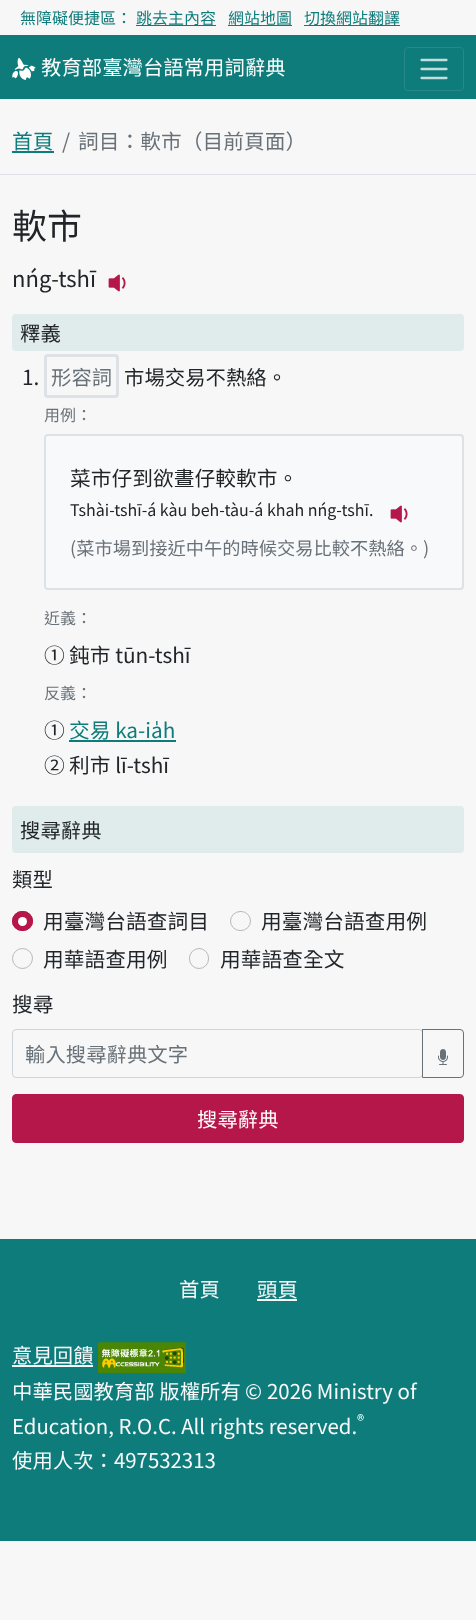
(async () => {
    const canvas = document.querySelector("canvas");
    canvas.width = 476;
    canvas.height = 1620;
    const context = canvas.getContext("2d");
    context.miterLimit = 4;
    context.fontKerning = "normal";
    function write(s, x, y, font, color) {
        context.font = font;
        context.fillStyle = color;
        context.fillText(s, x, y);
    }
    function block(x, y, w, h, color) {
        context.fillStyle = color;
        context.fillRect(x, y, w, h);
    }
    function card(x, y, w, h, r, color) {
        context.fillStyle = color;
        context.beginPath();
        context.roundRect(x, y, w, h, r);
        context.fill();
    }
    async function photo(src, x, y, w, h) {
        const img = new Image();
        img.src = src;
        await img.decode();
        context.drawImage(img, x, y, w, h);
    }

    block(0, 0, 476, 1620, "rgb(247, 247, 247)");
    write("無障礙便捷區：", 20, 24, "16px 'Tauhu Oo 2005'", "rgb(14, 124, 123)");
    block(136, 25, 80, 1, "rgb(14, 124, 123)");
    write("跳去主內容", 136, 24, "16px 'Tauhu Oo 2005'", "rgb(14, 124, 123)");
    block(228, 25, 64, 1, "rgb(14, 124, 123)");
    write("網站地圖", 228, 24, "16px 'Tauhu Oo 2005'", "rgb(14, 124, 123)");
    block(304, 25, 96, 1, "rgb(14, 124, 123)");
    write("切換網站翻譯", 304, 24, "16px 'Tauhu Oo 2005'", "rgb(14, 124, 123)");
    block(0, 35, 476, 64, "rgb(14, 124, 123)");
    await photo("media/1.png", 12, 58, 24, 22);
    write("教育部臺灣台語常用詞辭典", 41, 75, "20.4px 'Tauhu Oo 2005'", "rgb(255, 255, 255)");
    context.beginPath();
    context.roundRect(404.5, 47.5, 59, 43, 3.5);
    context.strokeStyle = "rgb(38, 137, 136)";
    context.stroke();
    context.beginPath();
    context.moveTo(421.5, 60);
    context.lineTo(446.5, 60);
    context.moveTo(421.5, 69);
    context.lineTo(446.5, 69);
    context.moveTo(421.5, 78);
    context.lineTo(446.5, 78);
    context.strokeStyle = "rgb(195, 222, 222)";
    context.lineWidth = 2.3;
    context.lineCap = "round";
    context.stroke();
    block(0, 174, 476, 1, "rgb(222, 226, 230)");
    write("首頁", 12, 149, "20.75px 'Tauhu Oo 2005'", "rgb(14, 124, 123)");
    block(12, 151, 42, 2, "rgb(14, 124, 123)");
    write("/", 62, 149, "20.75px 'Tauhu Oo 2005'", "rgb(104, 113, 120)");
    write("詞目：軟市（目前頁面）", 78, 149, "20.75px 'Tauhu Oo 2005'", "rgb(104, 113, 120)");
    write("軟市", 12, 239, "35px 'Tauhu Oo 2005'", "rgb(33, 37, 41)");
    write("nńg-tshī", 12, 287, "22px 'Tauhu Oo 2005'", "rgb(33, 37, 41)");
    await photo("media/2.png", 108, 274, 18, 18);
    card(12, 314, 452, 37, 4, "rgb(224, 235, 235)");
    write("釋義", 20, 341, "20.4px 'Tauhu Oo 2005'", "rgb(33, 37, 41)");
    write("1.", 22, 385, "20.75px 'Tauhu Oo 2005'", "rgb(33, 37, 41)");
    context.beginPath();
    context.roundRect(45.5, 355.5, 72, 41, 2.5);
    context.strokeStyle = "rgb(222, 226, 230)";
    context.lineWidth = 3;
    context.stroke();
    write("形容詞", 51, 385, "20.4px 'Tauhu Oo 2005'", "rgb(104, 113, 120)");
    write("市場交易不熱絡。", 124, 385, "20.4px 'Tauhu Oo 2005'", "rgb(33, 37, 41)");
    write("用例：", 44, 421, "16px 'Tauhu Oo 2005'", "rgb(104, 113, 120)");
    context.fillStyle = "rgb(248, 249, 250)";
    context.beginPath();
    context.roundRect(45, 435, 418, 154, 3);
    context.fill();
    context.lineWidth = 2;
    context.stroke();
    write("菜市仔到欲晝仔較軟市。", 70, 486, "20.75px 'Tauhu Oo 2005'", "rgb(33, 37, 41)");
    write("Tshài-tshī-á kàu beh-tàu-á khah nńg-tshī.", 70, 516, "16px 'Tauhu Oo 2005'", "rgb(33, 37, 41)");
    await photo("media/3.png", 390, 505, 18, 18);
    write("(菜市場到接近中午的時候交易比較不熱絡。)", 70, 555, "18.25px 'Tauhu Oo 2005'", "rgb(104, 113, 120)");
    write("近義：", 44, 624, "16px 'Tauhu Oo 2005'", "rgb(104, 113, 120)");
    write("①", 44, 663, "20.75px Noto Sans TC", "rgb(33, 37, 41)");
    write("鈍市 tūn-tshī", 69, 663, "20.75px 'Tauhu Oo 2005'", "rgb(33, 37, 41)");
    write("反義：", 44, 699, "16px 'Tauhu Oo 2005'", "rgb(104, 113, 120)");
    write("①", 44, 738, "20.75px Noto Sans TC", "rgb(33, 37, 41)");
    write("交易 ka-ia̍h", 69, 738, "20.75px 'Tauhu Oo 2005'", "rgb(14, 124, 123)");
    block(69, 740, 107, 2, "rgb(14, 124, 123)");
    write("②", 44, 773, "20.75px Noto Sans TC", "rgb(33, 37, 41)");
    write("利市 lī-tshī", 69, 773, "20.75px 'Tauhu Oo 2005'", "rgb(33, 37, 41)");
    card(12, 806, 452, 47, 4, "rgb(224, 235, 235)");
    write("搜尋辭典", 20, 838, "20.4px 'Tauhu Oo 2005'", "rgb(33, 37, 41)");
    write("類型", 12, 887, "20.4px 'Tauhu Oo 2005'", "rgb(33, 37, 41)");
    card(12, 911, 21, 20, 10, "rgb(182, 23, 75)");
    context.fillStyle = "rgb(255, 255, 255)";
    context.beginPath();
    context.arc(22.5, 921.5, 4.5, 0, Math.PI * 2);
    context.fill();
    context.beginPath();
    context.roundRect(12.5, 911.5, 20, 19, 9.5);
    context.strokeStyle = "rgb(182, 23, 75)";
    context.lineWidth = 1;
    context.stroke();
    write("用臺灣台語查詞目", 43, 929, "20.75px 'Tauhu Oo 2005'", "rgb(33, 37, 41)");
    context.beginPath();
    context.roundRect(230.5, 911.5, 20, 19, 9.5);
    context.strokeStyle = "rgb(185, 185, 185)";
    context.stroke();
    write("用臺灣台語查用例", 261, 929, "20.75px 'Tauhu Oo 2005'", "rgb(33, 37, 41)");
    context.beginPath();
    context.arc(22.5, 958.5, 10, 0, Math.PI * 2);
    context.stroke();
    write("用華語查用例", 43, 967, "20.75px 'Tauhu Oo 2005'", "rgb(33, 37, 41)");
    context.beginPath();
    context.roundRect(189.5, 948.5, 19, 20, 9.5);
    context.stroke();
    write("用華語查全文", 220, 967, "20.75px 'Tauhu Oo 2005'", "rgb(33, 37, 41)");
    write("搜尋", 12, 1012, "20.75px 'Tauhu Oo 2005'", "rgb(33, 37, 41)");
    context.beginPath();
    context.roundRect(12.5, 1029.5, 410, 48, 3.5);
    context.strokeStyle = "rgb(206, 212, 218)";
    context.stroke();
    write("輸入搜尋辭典文字", 25, 1062, "20.4px 'Tauhu Oo 2005'", "rgb(104, 113, 120)");
    context.beginPath();
    context.roundRect(422.5, 1029.5, 41, 48, [0, 3.5, 3.5, 0]);
    context.strokeStyle = "rgb(104, 113, 120)";
    context.stroke();
    await photo("media/4.png", 438, 1049, 10, 16);
    context.fillStyle = "rgb(182, 23, 75)";
    context.beginPath();
    context.roundRect(12.5, 1094.5, 451, 48, 3.5);
    context.fill();
    context.strokeStyle = "rgb(182, 23, 75)";
    context.stroke();
    write("搜尋辭典", 197, 1127, "20.4px 'Tauhu Oo 2005'", "rgb(255, 255, 255)");
    block(0, 1239, 476, 302, "rgb(14, 124, 123)");
    write("首頁", 179, 1297, "20.4px 'Tauhu Oo 2005'", "rgb(248, 249, 250)");
    write("頭頁", 257, 1297, "20.4px 'Tauhu Oo 2005'", "rgb(248, 249, 250)");
    block(257, 1299, 40, 2, "rgb(248, 249, 250)");
    write("意見回饋", 12, 1363, "20.4px 'Tauhu Oo 2005'", "rgb(248, 249, 250)");
    block(12, 1365, 81, 2, "rgb(248, 249, 250)");
    await photo("media/5.png", 98, 1342, 88, 31);
    write("中華民國教育部 版權所有", 12, 1399, "20.4px 'Tauhu Oo 2005'", "rgb(248, 249, 250)");
    write("©", 245, 1399, "20.4px Noto Sans TC", "rgb(248, 249, 250)");
    write("2026 Ministry of", 267, 1399, "20.4px 'Tauhu Oo 2005'", "rgb(248, 249, 250)");
    write("Education, R.O.C. All rights reserved.", 12, 1434, "20.4px 'Tauhu Oo 2005'", "rgb(248, 249, 250)");
    write("®", 357, 1426, "15px Noto Sans TC", "rgb(248, 249, 250)");
    write("使用人次：497532313", 12, 1468, "20.4px 'Tauhu Oo 2005'", "rgb(248, 249, 250)");
})();
